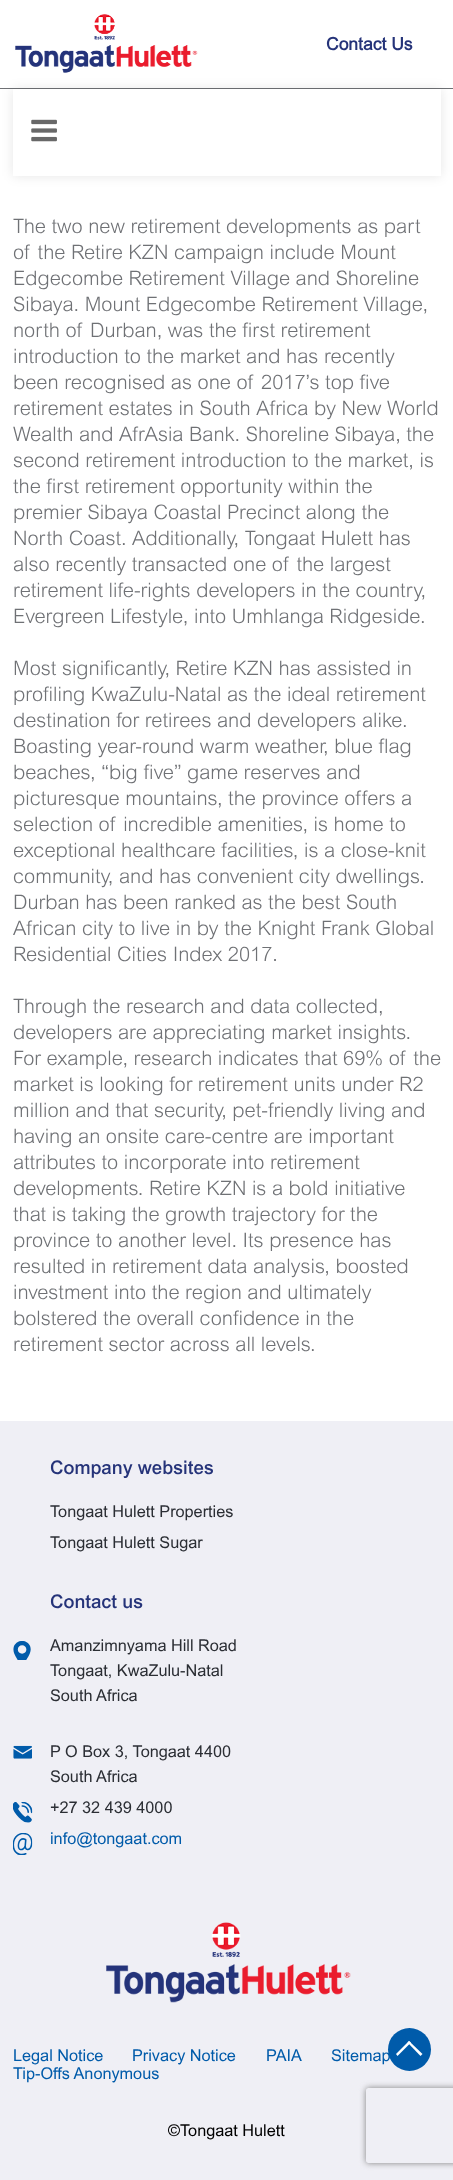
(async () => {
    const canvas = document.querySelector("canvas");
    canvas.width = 453;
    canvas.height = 2180;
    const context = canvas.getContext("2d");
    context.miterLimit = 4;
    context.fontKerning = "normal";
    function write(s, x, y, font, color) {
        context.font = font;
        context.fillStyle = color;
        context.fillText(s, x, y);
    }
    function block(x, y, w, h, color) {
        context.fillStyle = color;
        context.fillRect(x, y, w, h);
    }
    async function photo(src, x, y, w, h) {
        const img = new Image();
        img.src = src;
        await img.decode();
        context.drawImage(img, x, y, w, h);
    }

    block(0, 0, 453, 2180, "rgb(255, 255, 255)");
    block(0, 88, 453, 1, "rgb(111, 113, 117)");
    await photo("media/1.png", 15, 14, 183, 59);
    write("Contact Us", 326, 50, "bold 17.5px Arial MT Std", "rgb(37, 51, 121)");
    context.save();
    context.beginPath();
    context.moveTo(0, 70);
    context.lineTo(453, 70);
    context.lineTo(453, 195);
    context.lineTo(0, 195);
    context.closePath();
    context.moveTo(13, 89);
    context.lineTo(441, 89);
    context.lineTo(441, 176);
    context.lineTo(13, 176);
    context.closePath();
    context.clip("evenodd");
    context.fillStyle = "rgba(0, 0, 0, 0.1)";
    context.filter = "blur(6px)";
    context.beginPath();
    context.rect(13, 89, 428, 87);
    context.fill();
    context.filter = "none";
    context.restore();
    await photo("media/2.png", 31, 119, 26, 23);
    write("The two new retirement developments as part", 13, 233, "300 20px Arial MT Std", "rgb(111, 113, 117)");
    write("of the Retire KZN campaign include Mount", 13, 259, "300 20px Arial MT Std", "rgb(111, 113, 117)");
    write("Edgecombe Retirement Village and Shoreline", 13, 285, "300 20px Arial MT Std", "rgb(111, 113, 117)");
    write("Sibaya. Mount Edgecombe Retirement Village,", 13, 311, "300 20px Arial MT Std", "rgb(111, 113, 117)");
    write("north of Durban, was the first retirement", 13, 337, "300 20px Arial MT Std", "rgb(111, 113, 117)");
    write("introduction to the market and has recently", 13, 363, "300 20px Arial MT Std", "rgb(111, 113, 117)");
    write("been recognised as one of 2017’s top five", 13, 389, "300 20px Arial MT Std", "rgb(111, 113, 117)");
    write("retirement estates in South Africa by New World", 13, 415, "300 20px Arial MT Std", "rgb(111, 113, 117)");
    write("Wealth and AfrAsia Bank. Shoreline Sibaya, the", 13, 441, "300 20px Arial MT Std", "rgb(111, 113, 117)");
    write("second retirement introduction to the market, is", 13, 467, "300 20px Arial MT Std", "rgb(111, 113, 117)");
    write("the first retirement opportunity within the", 13, 493, "300 20px Arial MT Std", "rgb(111, 113, 117)");
    write("premier Sibaya Coastal Precinct along the", 13, 519, "300 20px Arial MT Std", "rgb(111, 113, 117)");
    write("North Coast. Additionally, Tongaat Hulett has", 13, 545, "300 20px Arial MT Std", "rgb(111, 113, 117)");
    write("also recently transacted one of the largest", 13, 571, "300 20px Arial MT Std", "rgb(111, 113, 117)");
    write("retirement life-rights developers in the country,", 13, 597, "300 20px Arial MT Std", "rgb(111, 113, 117)");
    write("Evergreen Lifestyle, into Umhlanga Ridgeside.", 13, 623, "300 20px Arial MT Std", "rgb(111, 113, 117)");
    write("Most significantly, Retire KZN has assisted in", 13, 675, "300 20px Arial MT Std", "rgb(111, 113, 117)");
    write("profiling KwaZulu-Natal as the ideal retirement", 13, 701, "300 20px Arial MT Std", "rgb(111, 113, 117)");
    write("destination for retirees and developers alike.", 13, 727, "300 20px Arial MT Std", "rgb(111, 113, 117)");
    write("Boasting year-round warm weather, blue flag", 13, 753, "300 20px Arial MT Std", "rgb(111, 113, 117)");
    write("beaches, “big five” game reserves and", 13, 779, "300 20px Arial MT Std", "rgb(111, 113, 117)");
    write("picturesque mountains, the province offers a", 13, 805, "300 20px Arial MT Std", "rgb(111, 113, 117)");
    write("selection of incredible amenities, is home to", 13, 831, "300 20px Arial MT Std", "rgb(111, 113, 117)");
    write("exceptional healthcare facilities, is a close-knit", 13, 857, "300 20px Arial MT Std", "rgb(111, 113, 117)");
    write("community, and has convenient city dwellings.", 13, 883, "300 20px Arial MT Std", "rgb(111, 113, 117)");
    write("Durban has been ranked as the best South", 13, 909, "300 20px Arial MT Std", "rgb(111, 113, 117)");
    write("African city to live in by the Knight Frank Global", 13, 935, "300 20px Arial MT Std", "rgb(111, 113, 117)");
    write("Residential Cities Index 2017.", 13, 961, "300 20px Arial MT Std", "rgb(111, 113, 117)");
    write("Through the research and data collected,", 13, 1013, "300 20px Arial MT Std", "rgb(111, 113, 117)");
    write("developers are appreciating market insights.", 13, 1039, "300 20px Arial MT Std", "rgb(111, 113, 117)");
    write("For example, research indicates that 69% of the", 13, 1065, "300 20px Arial MT Std", "rgb(111, 113, 117)");
    write("market is looking for retirement units under R2", 13, 1091, "300 20px Arial MT Std", "rgb(111, 113, 117)");
    write("million and that security, pet-friendly living and", 13, 1117, "300 20px Arial MT Std", "rgb(111, 113, 117)");
    write("having an onsite care-centre are important", 13, 1143, "300 20px Arial MT Std", "rgb(111, 113, 117)");
    write("attributes to incorporate into retirement", 13, 1169, "300 20px Arial MT Std", "rgb(111, 113, 117)");
    write("developments. Retire KZN is a bold initiative", 13, 1195, "300 20px Arial MT Std", "rgb(111, 113, 117)");
    write("that is taking the growth trajectory for the", 13, 1221, "300 20px Arial MT Std", "rgb(111, 113, 117)");
    write("province to another level. Its presence has", 13, 1247, "300 20px Arial MT Std", "rgb(111, 113, 117)");
    write("resulted in retirement data analysis, boosted", 13, 1273, "300 20px Arial MT Std", "rgb(111, 113, 117)");
    write("investment into the region and ultimately", 13, 1299, "300 20px Arial MT Std", "rgb(111, 113, 117)");
    write("bolstered the overall confidence in the", 13, 1325, "300 20px Arial MT Std", "rgb(111, 113, 117)");
    write("retirement sector across all levels.", 13, 1351, "300 20px Arial MT Std", "rgb(111, 113, 117)");
    block(0, 1421, 453, 759, "rgb(239, 239, 245)");
    write("Company websites", 50, 1474, "500 18.75px Arial MT Std", "rgb(37, 51, 121)");
    write("Tongaat Hulett Properties", 50, 1517, "16.25px Arial MT Std", "rgb(43, 46, 52)");
    write("Tongaat Hulett Sugar", 50, 1548, "16.25px Arial MT Std", "rgb(43, 46, 52)");
    write("Contact us", 50, 1608, "500 18.75px Arial MT Std", "rgb(37, 51, 121)");
    await photo("media/3.png", 13, 1641, 18, 19);
    write("Amanzimnyama Hill Road", 50, 1651, "16.25px Arial MT Std", "rgb(43, 46, 52)");
    write("Tongaat, KwaZulu-Natal", 50, 1676, "16.25px Arial MT Std", "rgb(43, 46, 52)");
    write("South Africa", 50, 1701, "16.25px Arial MT Std", "rgb(43, 46, 52)");
    await photo("media/4.png", 13, 1745, 19, 14);
    write("P O Box 3, Tongaat 4400", 50, 1757, "16.25px Arial MT Std", "rgb(43, 46, 52)");
    write("South Africa", 50, 1782, "16.25px Arial MT Std", "rgb(43, 46, 52)");
    await photo("media/5.png", 13, 1802, 20, 21);
    write("+27 32 439 4000", 50, 1813, "16.25px Arial MT Std", "rgb(43, 46, 52)");
    await photo("media/6.png", 13, 1833, 20, 22);
    write("info@tongaat.com", 50, 1844, "16.25px Arial MT Std", "rgb(0, 91, 170)");
    await photo("media/7.png", 106, 1922, 245, 81);
    write("Legal Notice", 13, 2061, "16.25px Arial MT Std", "rgb(0, 91, 170)");
    write("Privacy Notice", 132, 2061, "16.25px Arial MT Std", "rgb(0, 91, 170)");
    write("PAIA", 266, 2061, "16.25px Arial MT Std", "rgb(0, 91, 170)");
    write("Sitemap", 331, 2061, "16.25px Arial MT Std", "rgb(0, 91, 170)");
    write("Tip-Offs Anonymous", 13, 2079, "16.25px Arial MT Std", "rgb(0, 91, 170)");
    write("©Tongaat Hulett", 168, 2136, "16.25px Arial MT Std", "rgb(0, 0, 0)");
    context.fillStyle = "rgb(0, 91, 170)";
    context.beginPath();
    context.arc(409.5, 2049.5, 21.5, 0, Math.PI * 2);
    context.fill();
    context.fillStyle = "rgb(255, 255, 255)";
    context.beginPath();
    context.moveTo(396, 2054);
    context.lineTo(409, 2041);
    context.lineTo(411, 2042.5);
    context.lineTo(397.5, 2056);
    context.closePath();
    context.fill();
    context.beginPath();
    context.moveTo(407.5, 2042.5);
    context.lineTo(409, 2041);
    context.lineTo(422.5, 2054);
    context.lineTo(420.5, 2056);
    context.closePath();
    context.fill();
    context.save();
    context.beginPath();
    context.moveTo(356, 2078);
    context.lineTo(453, 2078);
    context.lineTo(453, 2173);
    context.lineTo(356, 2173);
    context.closePath();
    context.moveTo(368.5, 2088);
    context.lineTo(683.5, 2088);
    context.bezierCurveTo(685, 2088, 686, 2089, 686, 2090.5);
    context.lineTo(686, 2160.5);
    context.bezierCurveTo(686, 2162, 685, 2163, 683.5, 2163);
    context.lineTo(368.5, 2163);
    context.bezierCurveTo(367, 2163, 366, 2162, 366, 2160.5);
    context.lineTo(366, 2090.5);
    context.bezierCurveTo(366, 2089, 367, 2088, 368.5, 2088);
    context.closePath();
    context.clip("evenodd");
    context.fillStyle = "rgb(128, 128, 128)";
    context.filter = "blur(3px)";
    context.beginPath();
    context.roundRect(366, 2088, 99, 75, 2.5);
    context.fill();
    context.filter = "none";
    context.restore();
})();
